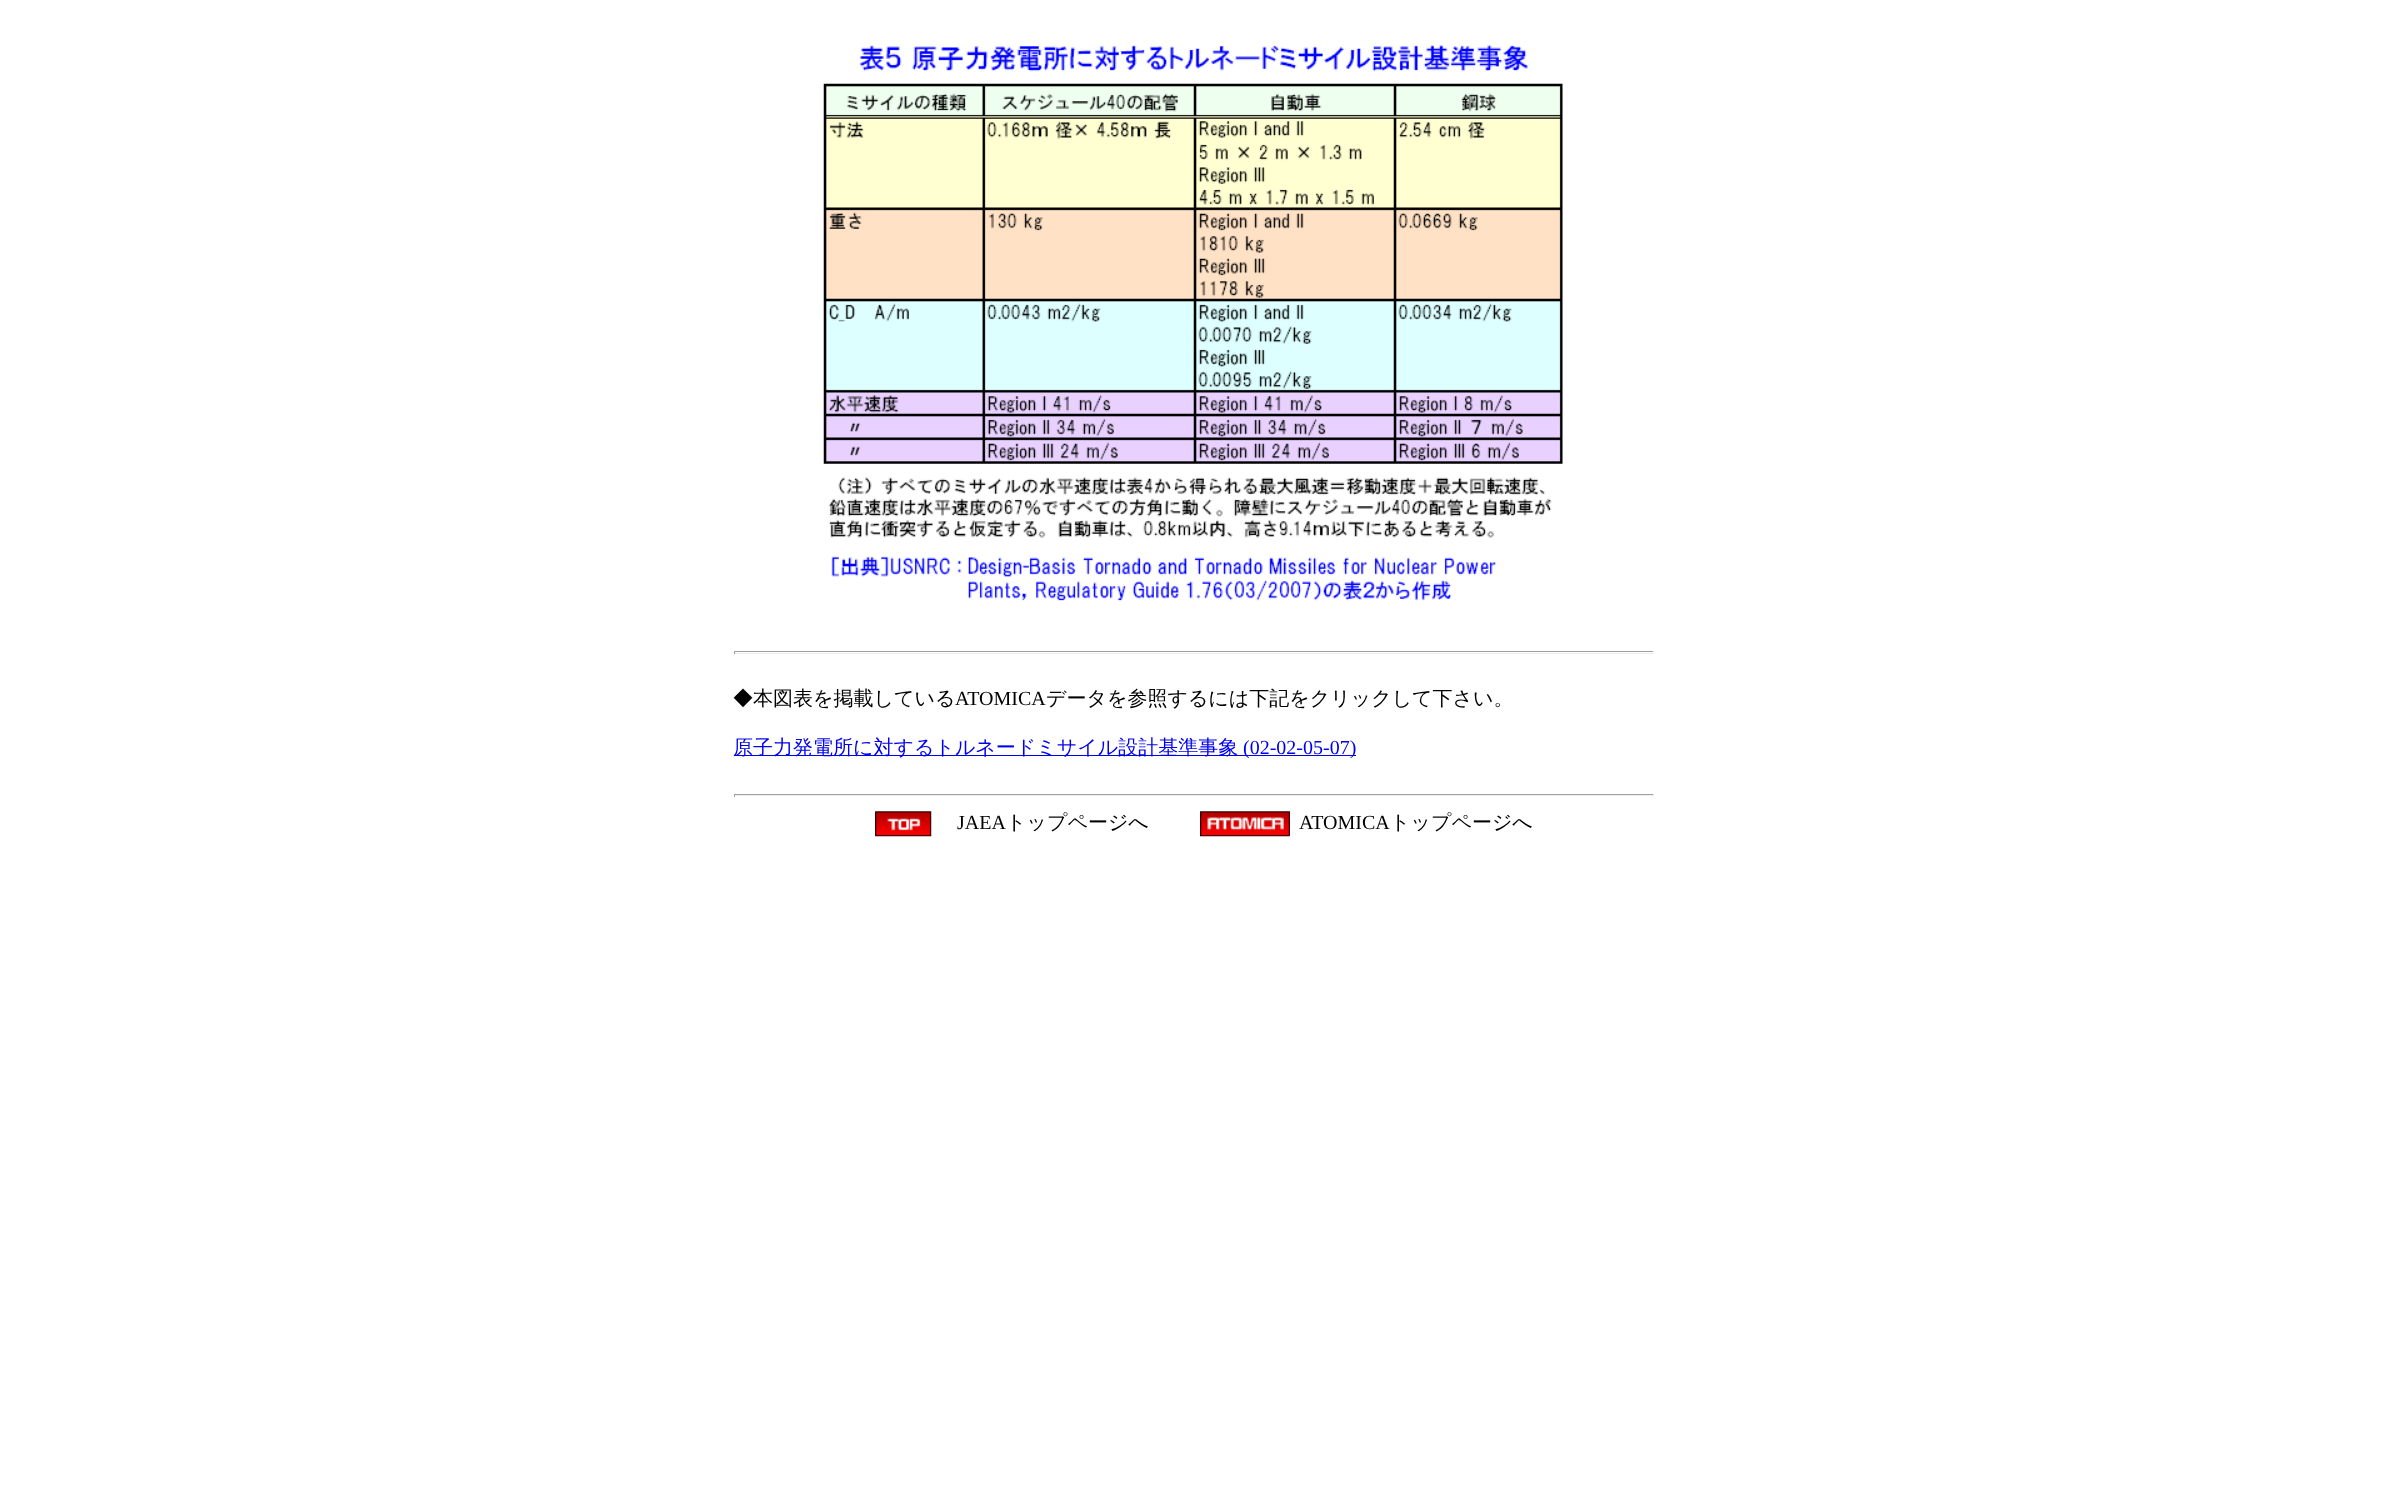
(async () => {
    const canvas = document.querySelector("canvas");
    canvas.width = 2386;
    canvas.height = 1491;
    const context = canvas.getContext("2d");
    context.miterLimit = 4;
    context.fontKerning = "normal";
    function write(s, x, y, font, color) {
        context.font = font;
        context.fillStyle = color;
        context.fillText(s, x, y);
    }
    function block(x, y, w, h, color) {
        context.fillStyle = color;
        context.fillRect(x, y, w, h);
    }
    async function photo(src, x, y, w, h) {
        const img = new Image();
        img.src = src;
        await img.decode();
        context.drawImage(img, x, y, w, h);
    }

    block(0, 0, 2386, 1491, "rgb(255, 255, 255)");
    await photo("media/1.png", 823, 44, 740, 557);
    block(734, 651, 920, 1, "rgb(159, 159, 159)");
    block(1653, 651, 1, 3, "rgb(238, 238, 238)");
    block(734, 653, 920, 1, "rgb(238, 238, 238)");
    block(734, 651, 1, 3, "rgb(159, 159, 159)");
    write("◆本図表を掲載している", 733, 705, "500 20px WenQuanYi Zen Hei", "rgb(0, 0, 0)");
    write("ATOMICA", 955, 705, "20px Liberation Serif", "rgb(0, 0, 0)");
    write("データを参照するには下記をクリックして下さい。", 1046, 705, "500 20px WenQuanYi Zen Hei", "rgb(0, 0, 0)");
    block(734, 755, 622, 1, "rgb(0, 0, 238)");
    write("原子力発電所に対するトルネードミサイル設計基準事象", 733, 754, "500 20px WenQuanYi Zen Hei", "rgb(0, 0, 238)");
    write("(02-02-05-07)", 1243, 754, "20px Liberation Serif", "rgb(0, 0, 238)");
    block(734, 794, 920, 1, "rgb(159, 159, 159)");
    block(1653, 794, 1, 3, "rgb(238, 238, 238)");
    block(734, 795, 920, 1, "rgb(238, 238, 238)");
    block(734, 794, 1, 3, "rgb(159, 159, 159)");
    await photo("media/2.png", 875, 811, 57, 26);
    write("JAEA", 957, 829, "20px Liberation Serif", "rgb(0, 0, 0)");
    write("トップページへ", 1006, 829, "500 20px WenQuanYi Zen Hei", "rgb(0, 0, 0)");
    await photo("media/3.png", 1200, 811, 90, 26);
    write("ATOMICA", 1299, 829, "20px Liberation Serif", "rgb(0, 0, 0)");
    write("トップページへ", 1390, 829, "500 20px WenQuanYi Zen Hei", "rgb(0, 0, 0)");
})();
